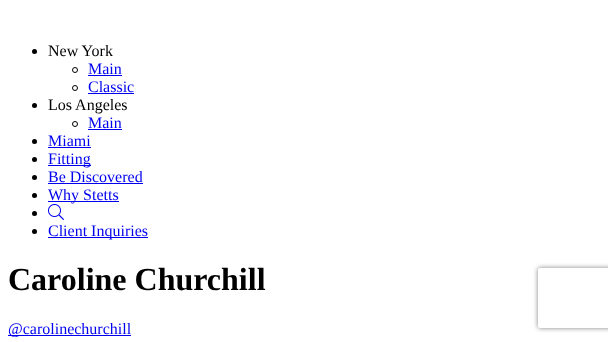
(async () => {
    const canvas = document.querySelector("canvas");
    canvas.width = 608;
    canvas.height = 342;
    const context = canvas.getContext("2d");
    context.miterLimit = 4;
    context.fontKerning = "normal";
    function write(s, x, y, font, color) {
        context.font = font;
        context.fillStyle = color;
        context.fillText(s, x, y);
    }
    function block(x, y, w, h, color) {
        context.fillStyle = color;
        context.fillRect(x, y, w, h);
    }
    async function photo(src, x, y, w, h) {
        const img = new Image();
        img.src = src;
        await img.decode();
        context.drawImage(img, x, y, w, h);
    }

    block(0, 0, 608, 342, "rgb(255, 255, 255)");
    context.fillStyle = "rgb(0, 0, 0)";
    context.beginPath();
    context.arc(34.5, 51.5, 2.5, 0, Math.PI * 2);
    context.fill();
    write("New York", 48, 56, "16px Liberation Serif", "rgb(0, 0, 0)");
    context.beginPath();
    context.arc(75, 70, 2.5, 0, Math.PI * 2);
    context.strokeStyle = "rgb(0, 0, 0)";
    context.stroke();
    write("Main", 88, 74, "16px Liberation Serif", "rgb(0, 0, 238)");
    block(88, 75, 34, 1, "rgb(0, 0, 238)");
    context.beginPath();
    context.arc(75, 88, 2.5, 0, Math.PI * 2);
    context.stroke();
    write("Classic", 88, 92, "16px Liberation Serif", "rgb(0, 0, 238)");
    block(88, 93, 46, 1, "rgb(0, 0, 238)");
    context.fillStyle = "rgb(0, 0, 0)";
    context.beginPath();
    context.arc(34.5, 105.5, 2.5, 0, Math.PI * 2);
    context.fill();
    write("Los Angeles", 48, 110, "16px Liberation Serif", "rgb(0, 0, 0)");
    context.beginPath();
    context.arc(75, 124, 2.5, 0, Math.PI * 2);
    context.stroke();
    write("Main", 88, 128, "16px Liberation Serif", "rgb(0, 0, 238)");
    block(88, 129, 34, 1, "rgb(0, 0, 238)");
    context.fillStyle = "rgb(0, 0, 0)";
    context.beginPath();
    context.arc(34.5, 141.5, 2.5, 0, Math.PI * 2);
    context.fill();
    write("Miami", 48, 146, "16px Liberation Serif", "rgb(0, 0, 238)");
    block(48, 147, 43, 1, "rgb(0, 0, 238)");
    context.fillStyle = "rgb(0, 0, 0)";
    context.beginPath();
    context.arc(34.5, 159.5, 2.5, 0, Math.PI * 2);
    context.fill();
    block(48, 165, 43, 1, "rgb(0, 0, 238)");
    write("Fitting", 48, 164, "16px Liberation Serif", "rgb(0, 0, 238)");
    context.fillStyle = "rgb(0, 0, 0)";
    context.beginPath();
    context.arc(34.5, 177.5, 2.5, 0, Math.PI * 2);
    context.fill();
    write("Be Discovered", 48, 182, "16px Liberation Serif", "rgb(0, 0, 238)");
    block(48, 183, 95, 1, "rgb(0, 0, 238)");
    context.fillStyle = "rgb(0, 0, 0)";
    context.beginPath();
    context.arc(34.5, 195.5, 2.5, 0, Math.PI * 2);
    context.fill();
    block(48, 201, 71, 1, "rgb(0, 0, 238)");
    write("Why Stetts", 48, 200, "16px Liberation Serif", "rgb(0, 0, 238)");
    context.fillStyle = "rgb(0, 0, 0)";
    context.beginPath();
    context.arc(34.5, 213.5, 2.5, 0, Math.PI * 2);
    context.fill();
    await photo("media/1.png", 48, 204, 16, 16);
    context.beginPath();
    context.arc(34.5, 231.5, 2.5, 0, Math.PI * 2);
    context.fill();
    block(48, 237, 100, 1, "rgb(0, 0, 238)");
    write("Client Inquiries", 48, 236, "16px Liberation Serif", "rgb(0, 0, 238)");
    write("Caroline Churchill", 8, 290, "bold 32px Liberation Serif", "rgb(0, 0, 0)");
    block(8, 335, 123, 1, "rgb(0, 0, 238)");
    write("@carolinechurchill", 8, 334, "16px Liberation Serif", "rgb(0, 0, 238)");
    context.save();
    context.beginPath();
    context.moveTo(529, 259);
    context.lineTo(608, 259);
    context.lineTo(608, 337);
    context.lineTo(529, 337);
    context.closePath();
    context.moveTo(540, 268);
    context.lineTo(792, 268);
    context.bezierCurveTo(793, 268, 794, 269, 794, 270);
    context.lineTo(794, 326);
    context.bezierCurveTo(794, 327, 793, 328, 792, 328);
    context.lineTo(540, 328);
    context.bezierCurveTo(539, 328, 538, 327, 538, 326);
    context.lineTo(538, 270);
    context.bezierCurveTo(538, 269, 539, 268, 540, 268);
    context.closePath();
    context.clip("evenodd");
    context.fillStyle = "rgb(128, 128, 128)";
    context.filter = "blur(2.5px)";
    context.beginPath();
    context.roundRect(538, 268, 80, 60, 2);
    context.fill();
    context.filter = "none";
    context.restore();
})();
